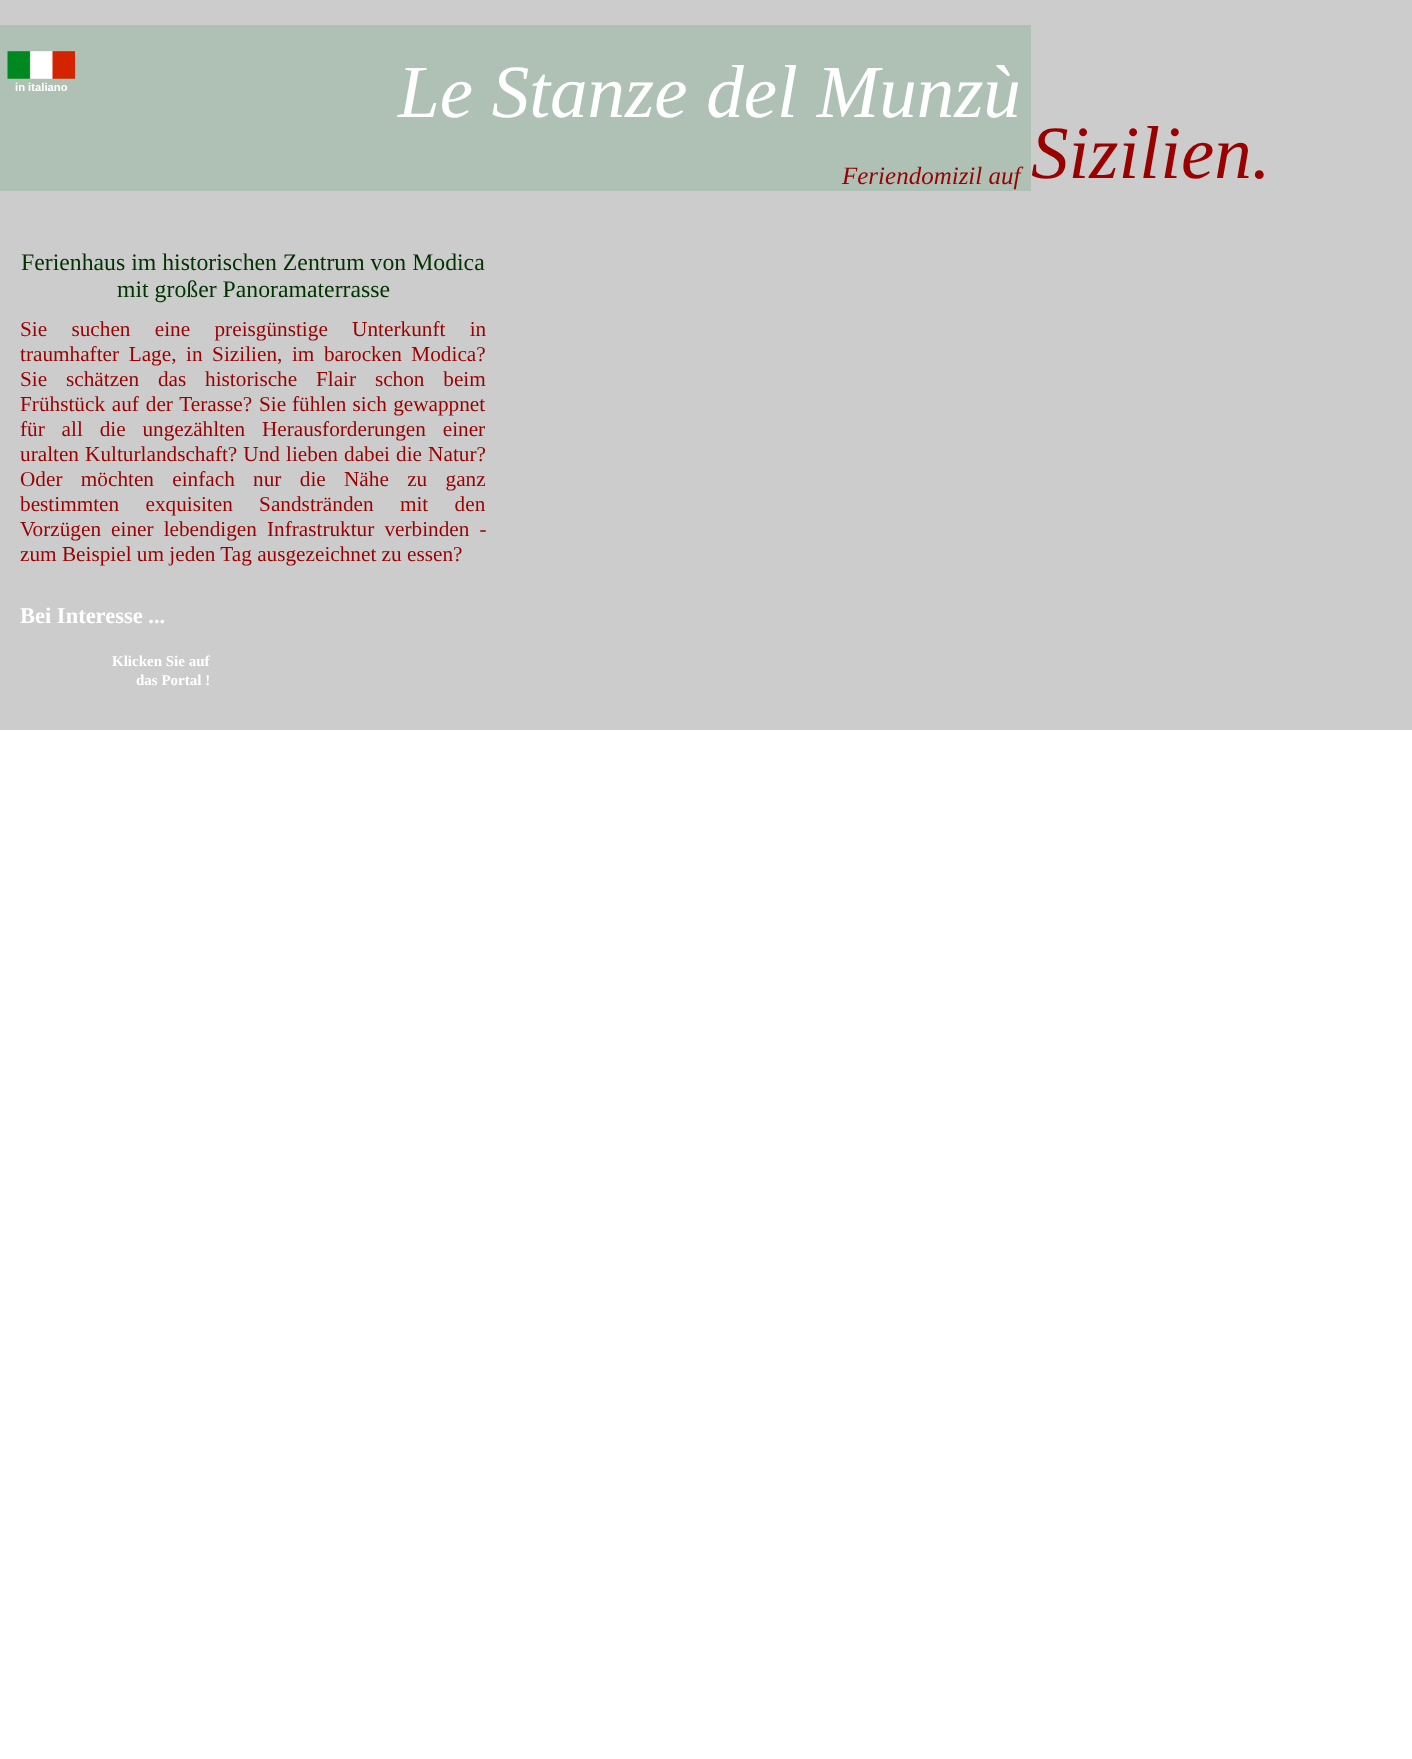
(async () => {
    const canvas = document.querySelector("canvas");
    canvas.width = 1412;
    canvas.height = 1759;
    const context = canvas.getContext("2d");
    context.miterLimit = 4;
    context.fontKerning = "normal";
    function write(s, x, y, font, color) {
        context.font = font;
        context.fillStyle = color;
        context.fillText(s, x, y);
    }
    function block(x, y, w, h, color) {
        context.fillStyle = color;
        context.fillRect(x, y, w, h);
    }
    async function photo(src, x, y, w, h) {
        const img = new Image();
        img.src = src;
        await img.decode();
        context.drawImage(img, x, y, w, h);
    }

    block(0, 0, 1412, 1759, "rgb(255, 255, 255)");
    block(0, 0, 1412, 730, "rgb(204, 204, 204)");
    block(0, 25, 1031, 166, "rgb(174, 193, 180)");
    await photo("media/1.png", 7, 51, 68, 28);
    write("in italiano", 15, 91, "bold 11.25px Liberation Sans", "rgb(255, 255, 255)");
    write("Le Stanze del Munzù", 398, 117, "italic 75px Liberation Serif", "rgb(255, 255, 255)");
    write("Feriendomizil auf", 842, 184, "italic 25px Liberation Serif", "rgb(153, 0, 0)");
    write("Sizilien.", 1031, 178, "italic 75px Liberation Serif", "rgb(153, 0, 0)");
    write("Ferienhaus im historischen Zentrum von Modica", 21, 270, "23.75px Liberation Serif", "rgb(0, 51, 0)");
    write("mit großer Panoramaterrasse", 117, 297, "23.75px Liberation Serif", "rgb(0, 51, 0)");
    context.wordSpacing = "19px";
    write("Sie suchen eine preisgünstige Unterkunft in", 20, 336, "21.25px Liberation Serif", "rgb(153, 0, 0)");
    context.wordSpacing = "4.25px";
    write("traumhafter Lage, in Sizilien, im barocken Modica?", 20, 361, "21.25px Liberation Serif", "rgb(153, 0, 0)");
    context.wordSpacing = "13.5px";
    write("Sie schätzen das historische Flair schon beim", 20, 386, "21.25px Liberation Serif", "rgb(153, 0, 0)");
    context.wordSpacing = "1.5px";
    write("Frühstück auf der Terasse? Sie", 20, 411, "21.25px Liberation Serif", "rgb(153, 0, 0)");
    context.wordSpacing = "1px";
    write("fühlen sich gewappnet", 292, 411, "21.25px Liberation Serif", "rgb(153, 0, 0)");
    context.wordSpacing = "11.5px";
    write("für all die ungezählten Herausforderungen einer", 20, 436, "21.25px Liberation Serif", "rgb(153, 0, 0)");
    context.wordSpacing = "0.75px";
    write("uralten Kulturlandschaft? Und lieben dabei die Natur?", 20, 461, "21.25px Liberation Serif", "rgb(153, 0, 0)");
    context.wordSpacing = "13px";
    write("Oder möchten einfach nur die Nähe zu ganz", 20, 486, "21.25px Liberation Serif", "rgb(153, 0, 0)");
    context.wordSpacing = "21px";
    write("bestimmten exquisiten Sandstränden mit den", 20, 511, "21.25px Liberation Serif", "rgb(153, 0, 0)");
    context.wordSpacing = "4.75px";
    write("Vorzügen einer lebendigen Infrastruktur verbinden -", 20, 536, "21.25px Liberation Serif", "rgb(153, 0, 0)");
    context.wordSpacing = "0px";
    write("zum Beispiel um jeden Tag ausgezeichnet zu essen?", 20, 561, "21.25px Liberation Serif", "rgb(153, 0, 0)");
    write("Bei Interesse ...", 20, 623, "bold 22.5px Liberation Serif", "rgb(255, 255, 255)");
    write("Klicken Sie auf", 112, 666, "bold 15px Liberation Serif", "rgb(255, 255, 255)");
    write("das Portal !", 136, 685, "bold 15px Liberation Serif", "rgb(255, 255, 255)");
})();
